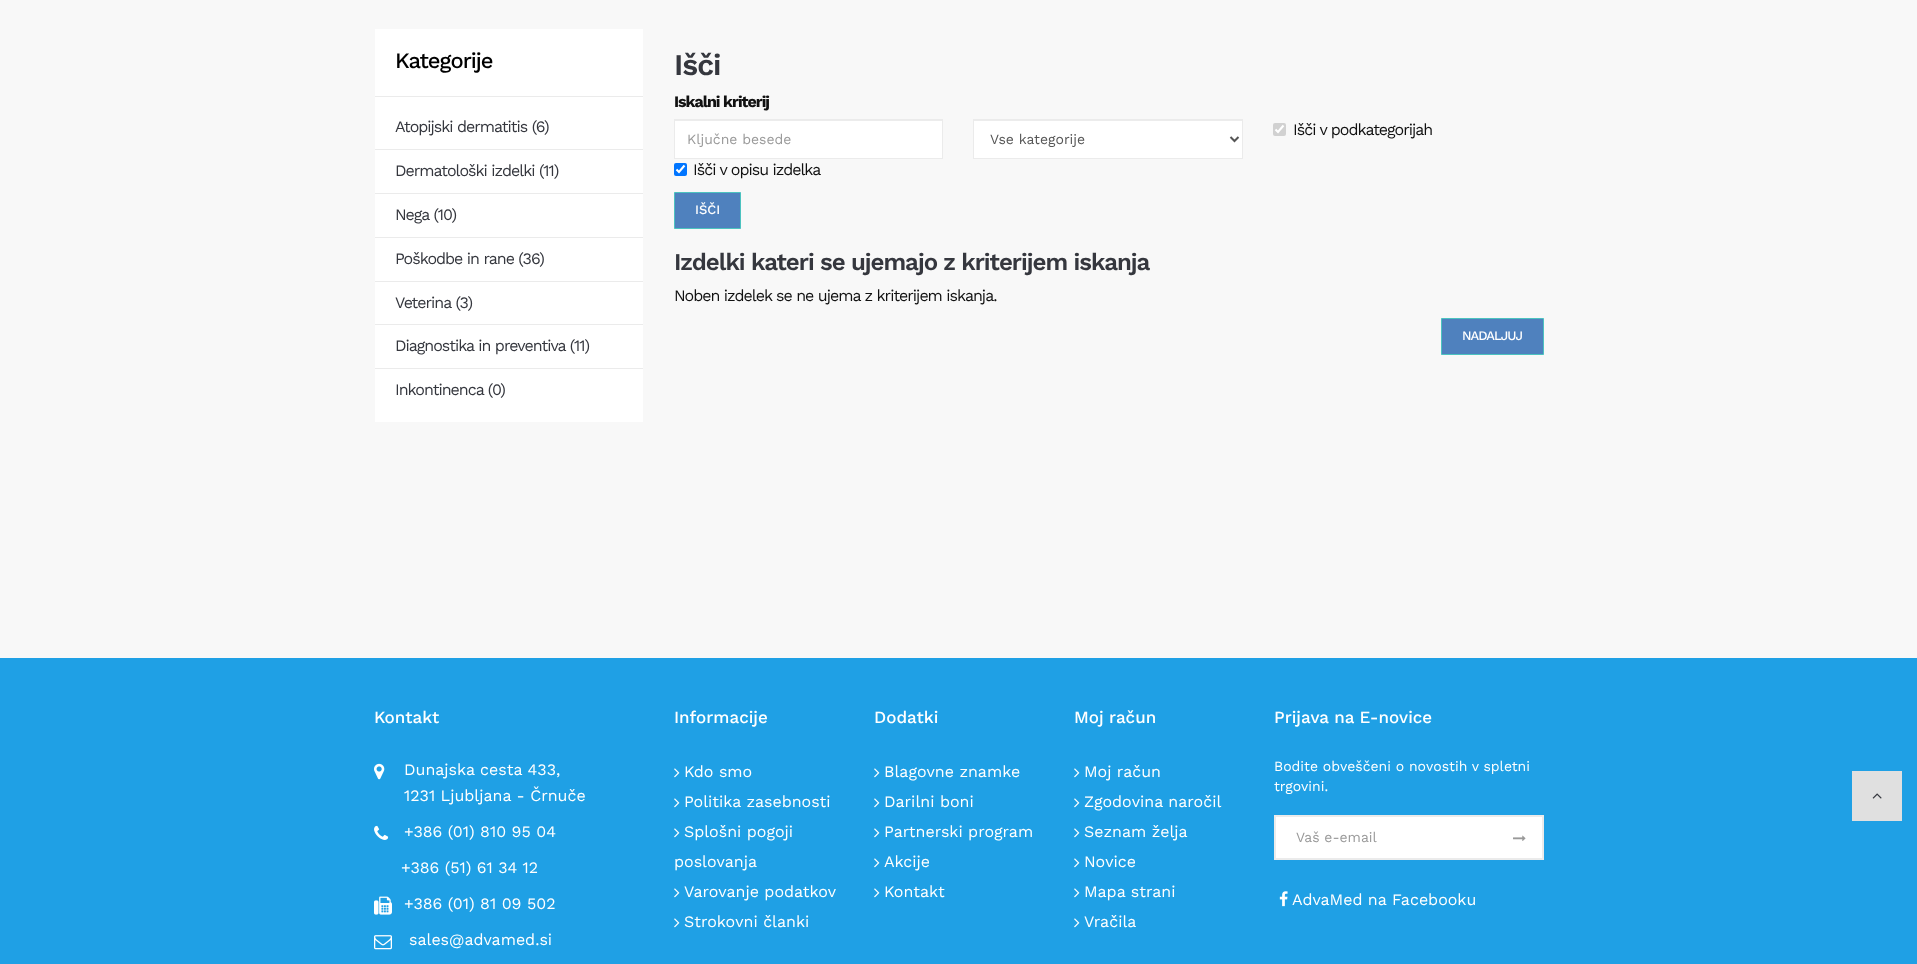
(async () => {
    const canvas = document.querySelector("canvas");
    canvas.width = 1917;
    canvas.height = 964;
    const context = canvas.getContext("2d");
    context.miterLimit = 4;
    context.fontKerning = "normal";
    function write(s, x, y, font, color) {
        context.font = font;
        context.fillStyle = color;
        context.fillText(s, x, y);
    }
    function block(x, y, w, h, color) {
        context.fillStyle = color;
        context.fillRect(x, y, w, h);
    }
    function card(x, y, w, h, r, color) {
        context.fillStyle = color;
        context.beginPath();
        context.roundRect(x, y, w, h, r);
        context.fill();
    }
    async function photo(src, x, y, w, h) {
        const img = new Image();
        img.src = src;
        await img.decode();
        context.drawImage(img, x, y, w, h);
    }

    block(0, 0, 1917, 964, "rgb(248, 248, 248)");
    block(375, 96, 268, 1, "rgb(235, 235, 235)");
    block(375, 29, 268, 67, "rgb(255, 255, 255)");
    context.letterSpacing = "-1px";
    write("Kategorije", 395, 68, "500 22px Work Sans", "rgb(0, 0, 0)");
    block(375, 97, 268, 325, "rgb(255, 255, 255)");
    block(375, 149, 268, 1, "rgb(235, 235, 235)");
    write("Atopijski dermatitis (6)", 395, 132, "16px Work Sans", "rgb(53, 55, 62)");
    block(375, 193, 268, 1, "rgb(235, 235, 235)");
    write("Dermatološki izdelki (11)", 395, 176, "16px Work Sans", "rgb(53, 55, 62)");
    block(375, 237, 268, 1, "rgb(235, 235, 235)");
    write("Nega (10)", 395, 220, "16px Work Sans", "rgb(53, 55, 62)");
    block(375, 281, 268, 1, "rgb(235, 235, 235)");
    write("Poškodbe in rane (36)", 395, 264, "16px Work Sans", "rgb(53, 55, 62)");
    block(375, 324, 268, 1, "rgb(235, 235, 235)");
    write("Veterina (3)", 395, 308, "16px Work Sans", "rgb(53, 55, 62)");
    block(375, 368, 268, 1, "rgb(235, 235, 235)");
    write("Diagnostika in preventiva (11)", 395, 351, "16px Work Sans", "rgb(53, 55, 62)");
    write("Inkontinenca (0)", 395, 395, "16px Work Sans", "rgb(53, 55, 62)");
    write("Išči", 674, 75, "600 30px Work Sans", "rgb(53, 55, 62)");
    write("Iskalni kriterij", 674, 107, "bold 16px Work Sans", "rgb(17, 17, 17)");
    block(675, 121, 267, 37, "rgb(255, 255, 255)");
    block(675, 120, 267, 1, "rgb(236, 236, 236)");
    context.strokeStyle = "rgb(235, 235, 235)";
    context.strokeRect(674.5, 119.5, 268, 39);
    context.letterSpacing = "0px";
    write("Ključne besede", 687, 144, "14px Work Sans", "rgb(153, 153, 153)");
    block(974, 121, 268, 37, "rgb(255, 255, 255)");
    block(974, 120, 268, 1, "rgb(236, 236, 236)");
    context.strokeRect(973.5, 119.5, 269, 39);
    context.beginPath();
    context.moveTo(1230.5, 137);
    context.lineTo(1234.5, 141);
    context.lineTo(1238.5, 137);
    context.strokeStyle = "rgb(85, 85, 85)";
    context.lineWidth = 2;
    context.stroke();
    write("Vse kategorije", 990, 144, "14px Work Sans", "rgb(85, 85, 85)");
    card(1273, 123, 13, 13, 2, "rgb(209, 209, 209)");
    context.beginPath();
    context.moveTo(1275.5, 129.5);
    context.lineTo(1278, 132);
    context.lineTo(1283.5, 125.5);
    context.strokeStyle = "rgb(255, 255, 255)";
    context.lineWidth = 2.1;
    context.stroke();
    context.letterSpacing = "-1px";
    write("Išči v podkategorijah", 1293, 135, "16px Work Sans", "rgb(17, 17, 17)");
    card(674, 163, 13, 13, 2, "rgb(0, 117, 255)");
    context.beginPath();
    context.moveTo(676.5, 169.5);
    context.lineTo(679, 172);
    context.lineTo(684.5, 165.5);
    context.stroke();
    write("Išči v opisu izdelka", 693, 175, "16px Work Sans", "rgb(17, 17, 17)");
    context.fillStyle = "rgb(79, 129, 190)";
    context.beginPath();
    context.rect(674.5, 192.5, 66, 36);
    context.fill();
    context.strokeStyle = "rgb(76, 195, 192)";
    context.lineWidth = 1;
    context.stroke();
    context.letterSpacing = "0px";
    write("IŠČI", 695, 214, "500 13px Work Sans", "rgb(255, 255, 255)");
    context.letterSpacing = "-1px";
    write("Izdelki kateri se ujemajo z kriterijem iskanja", 674, 270, "600 24px Work Sans", "rgb(53, 55, 62)");
    write("Noben izdelek se ne ujema z kriterijem iskanja.", 674, 301, "16px Work Sans", "rgb(17, 17, 17)");
    context.fillStyle = "rgb(79, 129, 190)";
    context.beginPath();
    context.rect(1441.5, 318.5, 102, 36);
    context.fill();
    context.stroke();
    write("NADALJUJ", 1462, 340, "500 13px Work Sans", "rgb(255, 255, 255)");
    block(0, 658, 1917, 306, "rgb(31, 160, 229)");
    context.letterSpacing = "0px";
    write("Kontakt", 374, 723, "500 17px Work Sans", "rgb(255, 255, 255)");
    await photo("media/1.png", 374, 763, 11, 17);
    write("Dunajska cesta 433,", 404, 775, "16px Work Sans", "rgb(255, 255, 255)");
    write("1231 Ljubljana - Črnuče", 404, 801, "16px Work Sans", "rgb(255, 255, 255)");
    await photo("media/2.png", 374, 825, 15, 15);
    write("+386 (01) 810 95 04", 404, 837, "16px Work Sans", "rgb(255, 255, 255)");
    write("+386 (51) 61 34 12", 401, 873, "16px Work Sans", "rgb(255, 255, 255)");
    await photo("media/3.png", 374, 896, 18, 19);
    write("+386 (01) 81 09 502", 404, 909, "16px Work Sans", "rgb(255, 255, 255)");
    await photo("media/4.png", 374, 935, 18, 15);
    write("sales@advamed.si", 409, 945, "16px Work Sans", "rgb(255, 255, 255)");
    write("Informacije", 674, 723, "500 17px Work Sans", "rgb(255, 255, 255)");
    await photo("media/5.png", 674, 768, 6, 10);
    write("Kdo smo", 684, 777, "16px Work Sans", "rgb(255, 255, 255)");
    await photo("media/5.png", 674, 798, 6, 10);
    write("Politika zasebnosti", 684, 807, "16px Work Sans", "rgb(255, 255, 255)");
    await photo("media/5.png", 674, 828, 6, 10);
    write("Splošni pogoji", 684, 837, "16px Work Sans", "rgb(255, 255, 255)");
    write("poslovanja", 674, 867, "16px Work Sans", "rgb(255, 255, 255)");
    await photo("media/5.png", 674, 888, 6, 10);
    write("Varovanje podatkov", 684, 897, "16px Work Sans", "rgb(255, 255, 255)");
    await photo("media/5.png", 674, 918, 6, 10);
    write("Strokovni članki", 684, 927, "16px Work Sans", "rgb(255, 255, 255)");
    write("Dodatki", 874, 723, "500 17px Work Sans", "rgb(255, 255, 255)");
    await photo("media/5.png", 874, 768, 6, 10);
    write("Blagovne znamke", 884, 777, "16px Work Sans", "rgb(255, 255, 255)");
    await photo("media/5.png", 874, 798, 6, 10);
    write("Darilni boni", 884, 807, "16px Work Sans", "rgb(255, 255, 255)");
    await photo("media/5.png", 874, 828, 6, 10);
    write("Partnerski program", 884, 837, "16px Work Sans", "rgb(255, 255, 255)");
    await photo("media/5.png", 874, 858, 6, 10);
    write("Akcije", 884, 867, "16px Work Sans", "rgb(255, 255, 255)");
    await photo("media/5.png", 874, 888, 6, 10);
    write("Kontakt", 884, 897, "16px Work Sans", "rgb(255, 255, 255)");
    write("Moj račun", 1074, 723, "500 17px Work Sans", "rgb(255, 255, 255)");
    await photo("media/5.png", 1074, 768, 6, 10);
    write("Moj račun", 1084, 777, "16px Work Sans", "rgb(255, 255, 255)");
    await photo("media/5.png", 1074, 798, 6, 10);
    write("Zgodovina naročil", 1084, 807, "16px Work Sans", "rgb(255, 255, 255)");
    await photo("media/5.png", 1074, 828, 6, 10);
    write("Seznam želja", 1084, 837, "16px Work Sans", "rgb(255, 255, 255)");
    await photo("media/5.png", 1074, 858, 6, 10);
    write("Novice", 1084, 867, "16px Work Sans", "rgb(255, 255, 255)");
    await photo("media/5.png", 1074, 888, 6, 10);
    write("Mapa strani", 1084, 897, "16px Work Sans", "rgb(255, 255, 255)");
    await photo("media/5.png", 1074, 918, 6, 10);
    write("Vračila", 1084, 927, "16px Work Sans", "rgb(255, 255, 255)");
    write("Prijava na E-novice", 1274, 723, "500 17px Work Sans", "rgb(255, 255, 255)");
    write("Bodite obveščeni o novostih v spletni", 1274, 771, "14px Work Sans", "rgb(255, 255, 255)");
    write("trgovini.", 1274, 791, "14px Work Sans", "rgb(255, 255, 255)");
    context.beginPath();
    context.rect(1275, 816, 268, 43);
    context.fill();
    context.strokeStyle = "rgb(235, 235, 235)";
    context.lineWidth = 2;
    context.stroke();
    write("Vaš e-email", 1296, 842, "14px Work Sans", "rgb(153, 153, 153)");
    await photo("media/6.png", 1513, 835, 13, 6);
    await photo("media/7.png", 1279, 891, 9, 16);
    write("AdvaMed na Facebooku", 1292, 905, "16px Work Sans", "rgb(255, 255, 255)");
    block(1852, 771, 50, 50, "rgb(224, 224, 224)");
    await photo("media/8.png", 1872, 793, 10, 6);
})();
